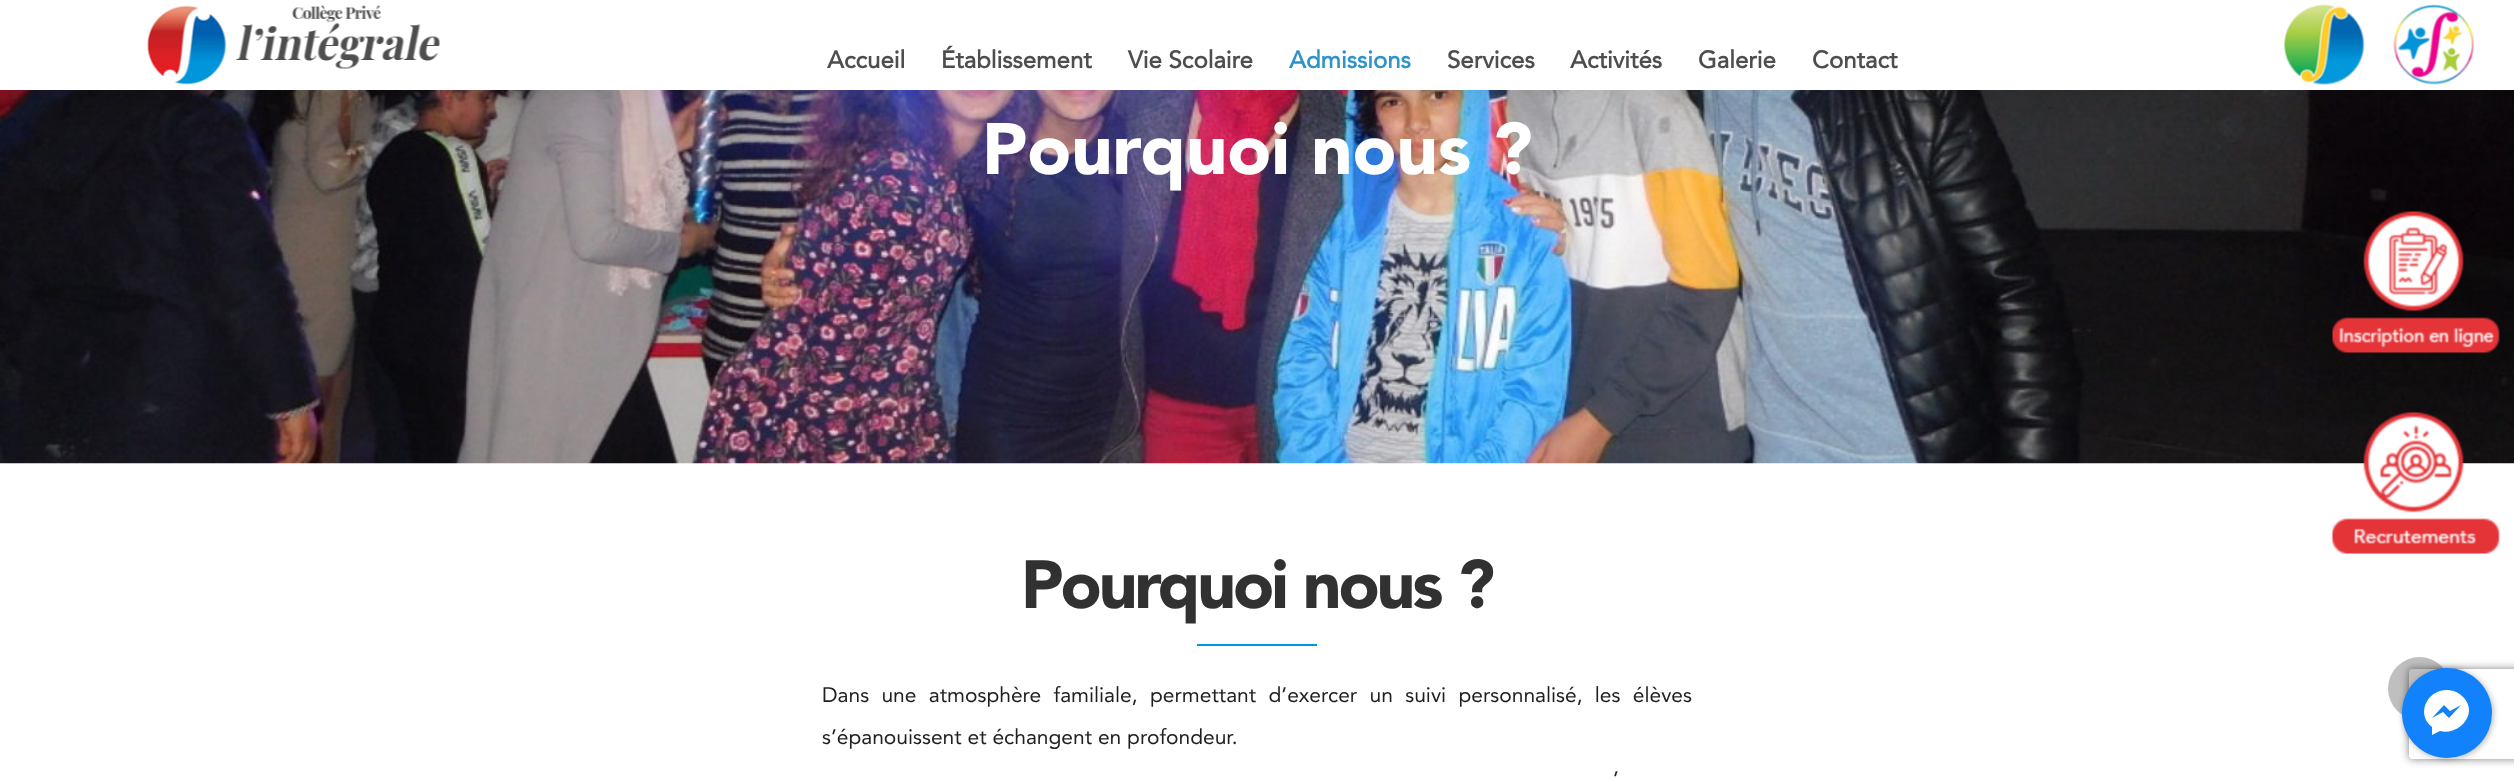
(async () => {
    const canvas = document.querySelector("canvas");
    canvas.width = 2514;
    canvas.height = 779;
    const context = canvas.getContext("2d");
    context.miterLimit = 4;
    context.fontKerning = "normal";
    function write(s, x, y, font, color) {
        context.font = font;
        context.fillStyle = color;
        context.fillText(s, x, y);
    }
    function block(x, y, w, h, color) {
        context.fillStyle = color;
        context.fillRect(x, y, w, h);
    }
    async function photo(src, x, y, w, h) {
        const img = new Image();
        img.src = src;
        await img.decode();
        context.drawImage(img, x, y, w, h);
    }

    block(0, 0, 2514, 779, "rgb(255, 255, 255)");
    await photo("media/4.png", 0, 90, 2514, 374);
    context.fillStyle = "rgba(0, 0, 0, 0.15)";
    context.filter = "blur(37.5px)";
    context.beginPath();
    context.rect(0, 0, 2514, 90);
    context.fill();
    context.filter = "none";
    block(0, 0, 2514, 90, "rgb(255, 255, 255)");
    await photo("media/1.png", 147, 5, 293, 80);
    write("Accueil", 827, 68, "bold 24px Avenir", "rgb(79, 77, 78)");
    write("Établissement", 941, 68, "bold 24px Avenir", "rgb(79, 77, 78)");
    write("Vie Scolaire", 1128, 68, "bold 24px Avenir", "rgb(79, 77, 78)");
    write("Admissions", 1289, 68, "bold 24px Avenir", "rgb(47, 147, 202)");
    write("Services", 1447, 68, "bold 24px Avenir", "rgb(79, 77, 78)");
    write("Activités", 1570, 68, "bold 24px Avenir", "rgb(79, 77, 78)");
    write("Galerie", 1698, 68, "bold 24px Avenir", "rgb(79, 77, 78)");
    write("Contact", 1812, 68, "bold 24px Avenir", "rgb(79, 77, 78)");
    await photo("media/2.png", 2284, 4, 81, 81);
    await photo("media/3.png", 2393, 4, 81, 81);
    write("Pourquoi nous ?", 982, 174, "900 72px 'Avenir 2'", "rgb(255, 255, 255)");
    context.letterSpacing = "-3px";
    write("Pourquoi nous ?", 1021, 608, "900 67.5px Avenir", "rgb(49, 49, 49)");
    block(1197, 644, 120, 2, "rgb(0, 150, 219)");
    context.letterSpacing = "0px";
    context.wordSpacing = "6.5px";
    write("Dans une atmosphère familiale, permettant d’exercer un suivi personnalisé, les élèves", 822, 702, "21px Avenir", "rgb(32, 31, 32)");
    context.wordSpacing = "0px";
    write("s’épanouissent et échangent en profondeur.", 822, 744, "21px Avenir", "rgb(32, 31, 32)");
    write("’", 1613, 786, "21px Avenir", "rgb(32, 31, 32)");
    await photo("media/5.png", 2332, 211, 168, 142);
    await photo("media/6.png", 2332, 412, 168, 142);
    context.save();
    context.beginPath();
    context.moveTo(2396, 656);
    context.lineTo(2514, 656);
    context.lineTo(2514, 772);
    context.lineTo(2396, 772);
    context.closePath();
    context.moveTo(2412, 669);
    context.lineTo(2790, 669);
    context.bezierCurveTo(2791.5, 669, 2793, 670.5, 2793, 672);
    context.lineTo(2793, 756);
    context.bezierCurveTo(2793, 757.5, 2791.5, 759, 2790, 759);
    context.lineTo(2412, 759);
    context.bezierCurveTo(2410.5, 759, 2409, 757.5, 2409, 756);
    context.lineTo(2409, 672);
    context.bezierCurveTo(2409, 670.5, 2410.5, 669, 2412, 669);
    context.closePath();
    context.clip("evenodd");
    context.fillStyle = "rgb(128, 128, 128)";
    context.filter = "blur(4px)";
    context.beginPath();
    context.roundRect(2409, 669, 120, 90, 3);
    context.fill();
    context.filter = "none";
    context.restore();
    context.fillStyle = "rgba(0, 0, 0, 0.25)";
    context.beginPath();
    context.arc(2419.5, 688.5, 31.5, 0, Math.PI * 2);
    context.fill();
    context.fillStyle = "rgba(0, 0, 0, 0.3)";
    context.filter = "blur(3px)";
    context.beginPath();
    context.roundRect(2403, 669, 90, 90, 45);
    context.fill();
    context.filter = "none";
    context.fillStyle = "rgb(17, 130, 252)";
    context.beginPath();
    context.arc(2447, 713, 45, 0, Math.PI * 2);
    context.fill();
    context.fillStyle = "rgb(255, 255, 255)";
    context.beginPath();
    context.moveTo(2447, 690);
    context.bezierCurveTo(2426, 690, 2416, 715, 2432, 727);
    context.lineTo(2432, 735);
    context.lineTo(2440, 731);
    context.bezierCurveTo(2460, 736, 2480, 712, 2462, 696);
    context.bezierCurveTo(2458, 692, 2452, 690, 2447, 690);
    context.closePath();
    context.moveTo(2449, 718);
    context.lineTo(2443, 712);
    context.lineTo(2432, 718);
    context.lineTo(2444, 705);
    context.lineTo(2450, 711);
    context.lineTo(2461, 705);
    context.closePath();
    context.fill();
})();
